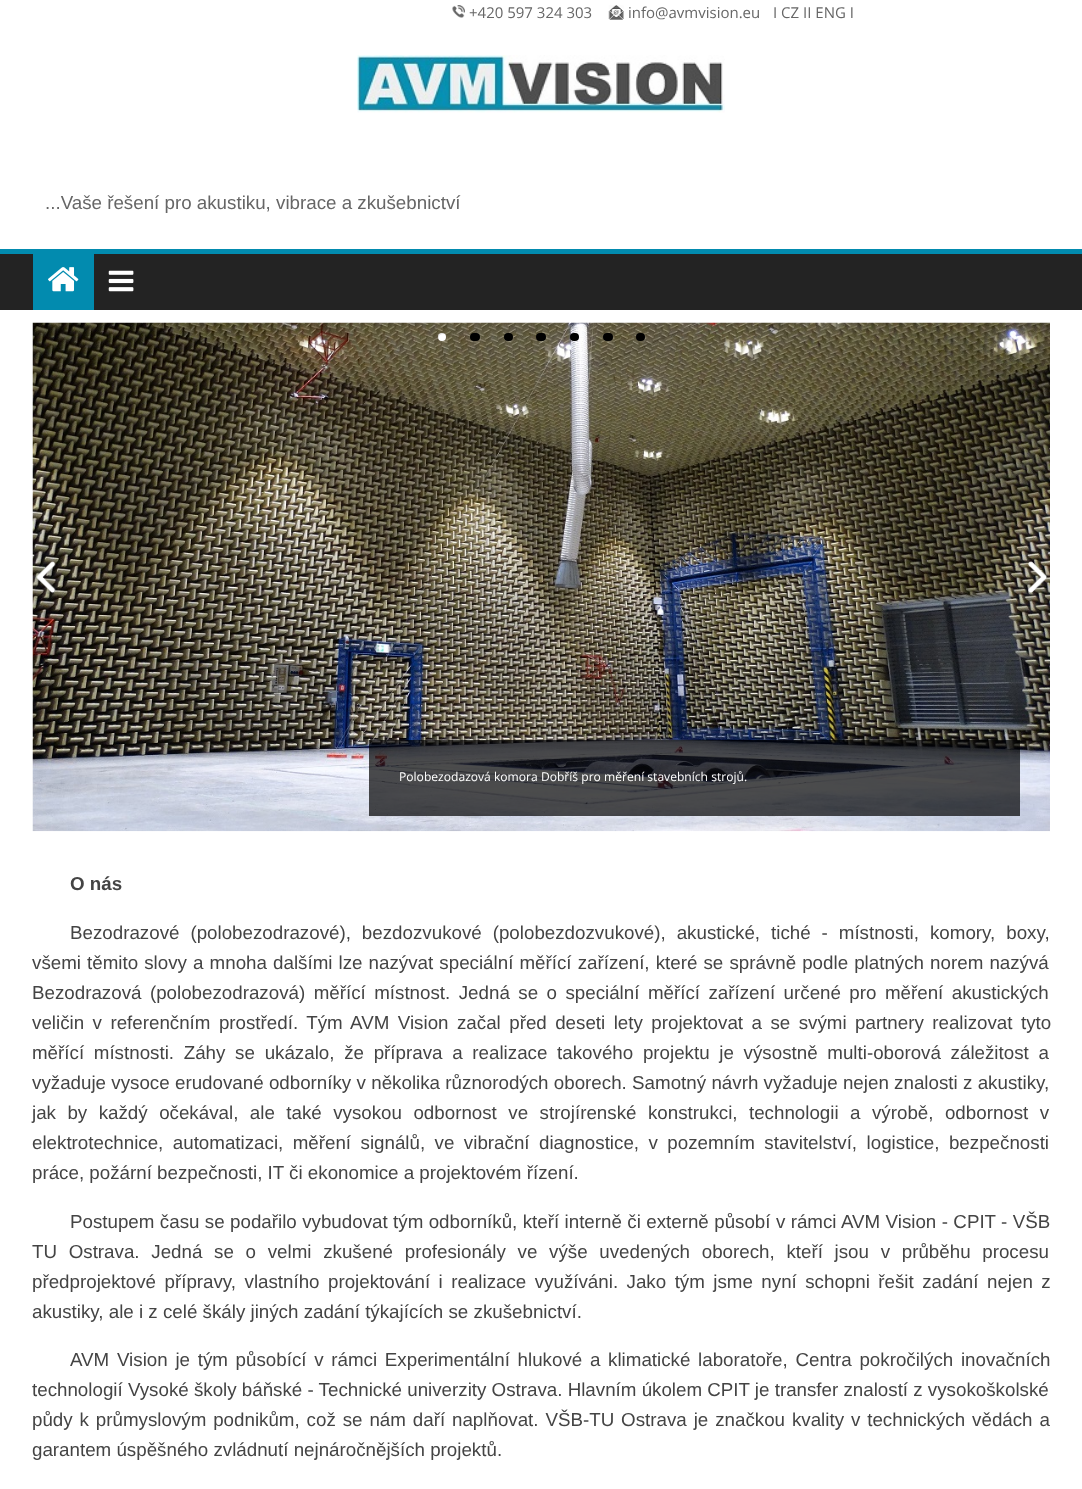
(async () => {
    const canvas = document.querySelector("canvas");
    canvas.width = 1082;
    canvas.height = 1489;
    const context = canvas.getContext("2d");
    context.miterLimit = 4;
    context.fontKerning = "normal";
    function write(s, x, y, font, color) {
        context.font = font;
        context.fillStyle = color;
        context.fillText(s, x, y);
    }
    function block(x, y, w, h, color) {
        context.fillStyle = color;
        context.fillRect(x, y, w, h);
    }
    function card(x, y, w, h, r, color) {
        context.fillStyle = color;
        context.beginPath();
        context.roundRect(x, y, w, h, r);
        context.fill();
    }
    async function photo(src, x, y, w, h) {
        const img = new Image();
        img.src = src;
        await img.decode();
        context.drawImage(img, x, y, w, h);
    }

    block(0, 0, 1082, 1489, "rgb(255, 255, 255)");
    await photo("media/1.png", 452, 5, 13, 13);
    write("+420 597 324 303", 469, 18, "15px Open Sans", "rgb(102, 102, 102)");
    await photo("media/2.png", 608, 5, 16, 15);
    write("info@avmvision.eu", 628, 18, "15px Open Sans", "rgb(102, 102, 102)");
    write("I CZ II ENG I", 773, 18, "15px Open Sans", "rgb(102, 102, 102)");
    await photo("media/3.png", 357, 55, 368, 58);
    write("...Vaše řešení pro akustiku, vibrace a zkušebnictví", 45, 209, "18.75px Liberation Sans", "rgb(102, 102, 102)");
    block(0, 254, 1082, 56, "rgb(35, 35, 35)");
    block(0, 249, 1082, 5, "rgb(2, 139, 175)");
    block(33, 254, 61, 56, "rgb(2, 139, 175)");
    await photo("media/4.png", 48, 267, 31, 25);
    await photo("media/5.png", 108, 270, 26, 22);
    await photo("media/8.png", 32, 322, 1018, 510);
    context.fillStyle = "rgba(255, 255, 255, 0.1)";
    context.filter = "blur(0.5px)";
    context.beginPath();
    context.roundRect(439, 334, 9, 9, 4.5);
    context.fill();
    context.filter = "none";
    context.fillStyle = "rgb(255, 255, 255)";
    context.beginPath();
    context.arc(442, 337, 4, 0, Math.PI * 2);
    context.fill();
    context.fillStyle = "rgba(0, 0, 0, 0.1)";
    context.beginPath();
    context.moveTo(443, 334);
    context.lineTo(445, 334.5);
    context.bezierCurveTo(442, 330.5, 436, 335.5, 438.5, 339.5);
    context.bezierCurveTo(438, 337, 439.5, 334, 443, 334);
    context.closePath();
    context.fill();
    context.fillStyle = "rgba(255, 255, 255, 0.1)";
    context.filter = "blur(0.5px)";
    context.beginPath();
    context.roundRect(471, 334, 10, 9, 4.5);
    context.fill();
    context.filter = "none";
    card(470, 333, 10, 8, 4, "rgb(0, 0, 0)");
    context.fillStyle = "rgba(0, 0, 0, 0.1)";
    context.beginPath();
    context.moveTo(476, 334);
    context.bezierCurveTo(477.5, 334, 478.5, 334.5, 479.5, 335);
    context.bezierCurveTo(478.5, 333.5, 477.5, 333, 476, 333);
    context.lineTo(472.5, 333.5);
    context.bezierCurveTo(469, 334.5, 469.5, 339.5, 472.5, 340.5);
    context.bezierCurveTo(470.5, 338.5, 472, 334, 476, 334);
    context.closePath();
    context.fill();
    context.fillStyle = "rgba(255, 255, 255, 0.1)";
    context.filter = "blur(0.5px)";
    context.beginPath();
    context.roundRect(505, 334, 9, 9, 4.5);
    context.fill();
    context.filter = "none";
    card(504, 333, 9, 8, 4, "rgb(0, 0, 0)");
    context.fillStyle = "rgba(0, 0, 0, 0.1)";
    context.beginPath();
    context.moveTo(509, 334);
    context.bezierCurveTo(511, 334, 512, 334.5, 513, 336);
    context.bezierCurveTo(511, 331, 502.5, 333, 504, 338);
    context.bezierCurveTo(504.5, 339, 505, 340, 506, 340.5);
    context.bezierCurveTo(504.5, 338, 505.5, 334, 509, 334);
    context.closePath();
    context.fill();
    context.fillStyle = "rgba(255, 255, 255, 0.1)";
    context.filter = "blur(0.5px)";
    context.beginPath();
    context.roundRect(538, 334, 10, 9, 4.5);
    context.fill();
    context.filter = "none";
    card(536, 333, 10, 8, 4, "rgb(0, 0, 0)");
    card(570, 333, 9, 8, 4, "rgb(0, 0, 0)");
    context.fillStyle = "rgba(0, 0, 0, 0.1)";
    context.beginPath();
    context.moveTo(576, 334);
    context.bezierCurveTo(577, 334, 577.5, 334.5, 578.5, 335);
    context.bezierCurveTo(577.5, 333.5, 576.5, 333, 575, 333);
    context.bezierCurveTo(569.5, 333, 568, 339, 572.5, 341);
    context.bezierCurveTo(570.5, 338.5, 571.5, 334, 576, 334);
    context.closePath();
    context.fill();
    context.fillStyle = "rgba(255, 255, 255, 0.1)";
    context.filter = "blur(0.5px)";
    context.beginPath();
    context.roundRect(604, 334, 10, 9, 4.5);
    context.fill();
    context.filter = "none";
    card(603, 333, 10, 8, 4, "rgb(0, 0, 0)");
    context.fillStyle = "rgba(255, 255, 255, 0.1)";
    context.filter = "blur(0.5px)";
    context.beginPath();
    context.roundRect(638, 334, 8, 9, 4);
    context.fill();
    context.filter = "none";
    card(636, 333, 9, 8, 4, "rgb(0, 0, 0)");
    context.fillStyle = "rgba(0, 0, 0, 0.1)";
    context.beginPath();
    context.moveTo(642, 334);
    context.lineTo(644, 334.5);
    context.bezierCurveTo(643, 333.5, 642, 333, 641, 333);
    context.bezierCurveTo(635.5, 333, 634, 339, 638.5, 341);
    context.bezierCurveTo(636.5, 338.5, 637.5, 334, 642, 334);
    context.closePath();
    context.fill();
    await photo("media/6.png", 35, 560, 23, 35);
    await photo("media/7.png", 1025, 560, 25, 37);
    block(369, 740, 651, 76, "rgba(0, 0, 0, 0.7)");
    write("Polobezodazová komora Dobříš pro měření stavebních strojů.", 399, 781, "12.1px Open Sans", "rgb(255, 255, 255)");
    write("O nás", 70, 890, "bold 18.75px Liberation Sans", "rgb(68, 68, 68)");
    context.wordSpacing = "5.75px";
    write("Bezodrazové (polobezodrazové), bezdozvukové (polobezdozvukové), akustické, tiché - místnosti, komory, boxy,", 70, 939, "18.75px Liberation Sans", "rgb(68, 68, 68)");
    context.wordSpacing = "0.9px";
    write("všemi těmito slovy a mnoha dalšími lze nazývat speciální měřící zařízení, které se správně podle platných norem nazývá", 32, 969, "18.75px Liberation Sans", "rgb(68, 68, 68)");
    context.wordSpacing = "3.25px";
    write("Bezodrazová (polobezodrazová) měřící místnost. Jedná se o speciální měřící zařízení určené pro měření akustických", 32, 999, "18.75px Liberation Sans", "rgb(68, 68, 68)");
    write("veličin v referenčním prostředí. Tým AVM Vision začal před deseti lety projektovat a se svými partnery realizovat tyto", 32, 1029, "18.75px Liberation Sans", "rgb(68, 68, 68)");
    context.wordSpacing = "4.5px";
    write("měřící místnosti. Záhy se ukázalo, že příprava a realizace takového projektu je výsostně multi-oborová záležitost a", 32, 1059, "18.75px Liberation Sans", "rgb(68, 68, 68)");
    context.wordSpacing = "0.1px";
    write("vyžaduje vysoce erudované odborníky v několika různorodých oborech. Samotný návrh vyžaduje nejen znalosti z akustiky,", 32, 1089, "18.75px Liberation Sans", "rgb(68, 68, 68)");
    context.wordSpacing = "6.25px";
    write("jak by každý očekával, ale také vysokou odbornost ve strojírenské konstrukci, technologii a výrobě, odbornost v", 32, 1119, "18.75px Liberation Sans", "rgb(68, 68, 68)");
    context.wordSpacing = "4.25px";
    write("elektrotechnice, automatizaci, měření signálů, ve vibrační diagnostice, v pozemním stavitelství, logistice, bezpečnosti", 32, 1149, "18.75px Liberation Sans", "rgb(68, 68, 68)");
    context.wordSpacing = "0px";
    write("práce, požární bezpečnosti, IT či ekonomice a projektovém řízení.", 32, 1179, "18.75px Liberation Sans", "rgb(68, 68, 68)");
    context.wordSpacing = "0.2px";
    write("Postupem času se podařilo vybudovat tým odborníků, kteří interně či externě působí v rámci AVM Vision - CPIT - VŠB", 70, 1228, "18.75px Liberation Sans", "rgb(68, 68, 68)");
    context.wordSpacing = "6.5px";
    write("TU Ostrava. Jedná se o velmi zkušené profesionály ve výše uvedených oborech, kteří jsou v průběhu procesu", 32, 1258, "18.75px Liberation Sans", "rgb(68, 68, 68)");
    context.wordSpacing = "3.25px";
    write("předprojektové přípravy, vlastního projektování i realizace využíváni. Jako tým jsme nyní schopni řešit zadání nejen z", 32, 1288, "18.75px Liberation Sans", "rgb(68, 68, 68)");
    context.wordSpacing = "0px";
    write("akustiky, ale i z celé škály jiných zadání týkajících se zkušebnictví.", 32, 1318, "18.75px Liberation Sans", "rgb(68, 68, 68)");
    context.wordSpacing = "2.5px";
    write("AVM Vision je tým působící v rámci Experimentální hlukové a klimatické laboratoře, Centra pokročilých inovačních", 70, 1366, "18.75px Liberation Sans", "rgb(68, 68, 68)");
    context.wordSpacing = "0px";
    write("technologií Vysoké školy báňské - Technické univerzity Ostrava. Hlavním úkolem CPIT je transfer znalostí z vysokoškolské", 32, 1396, "18.75px Liberation Sans", "rgb(68, 68, 68)");
    context.wordSpacing = "1.7px";
    write("půdy k průmyslovým podnikům, což se nám daří naplňovat. VŠB-TU Ostrava je značkou kvality v technických vědách a", 32, 1426, "18.75px Liberation Sans", "rgb(68, 68, 68)");
    context.wordSpacing = "0px";
    write("garantem úspěšného zvládnutí nejnáročnějších projektů.", 32, 1456, "18.75px Liberation Sans", "rgb(68, 68, 68)");
})();
